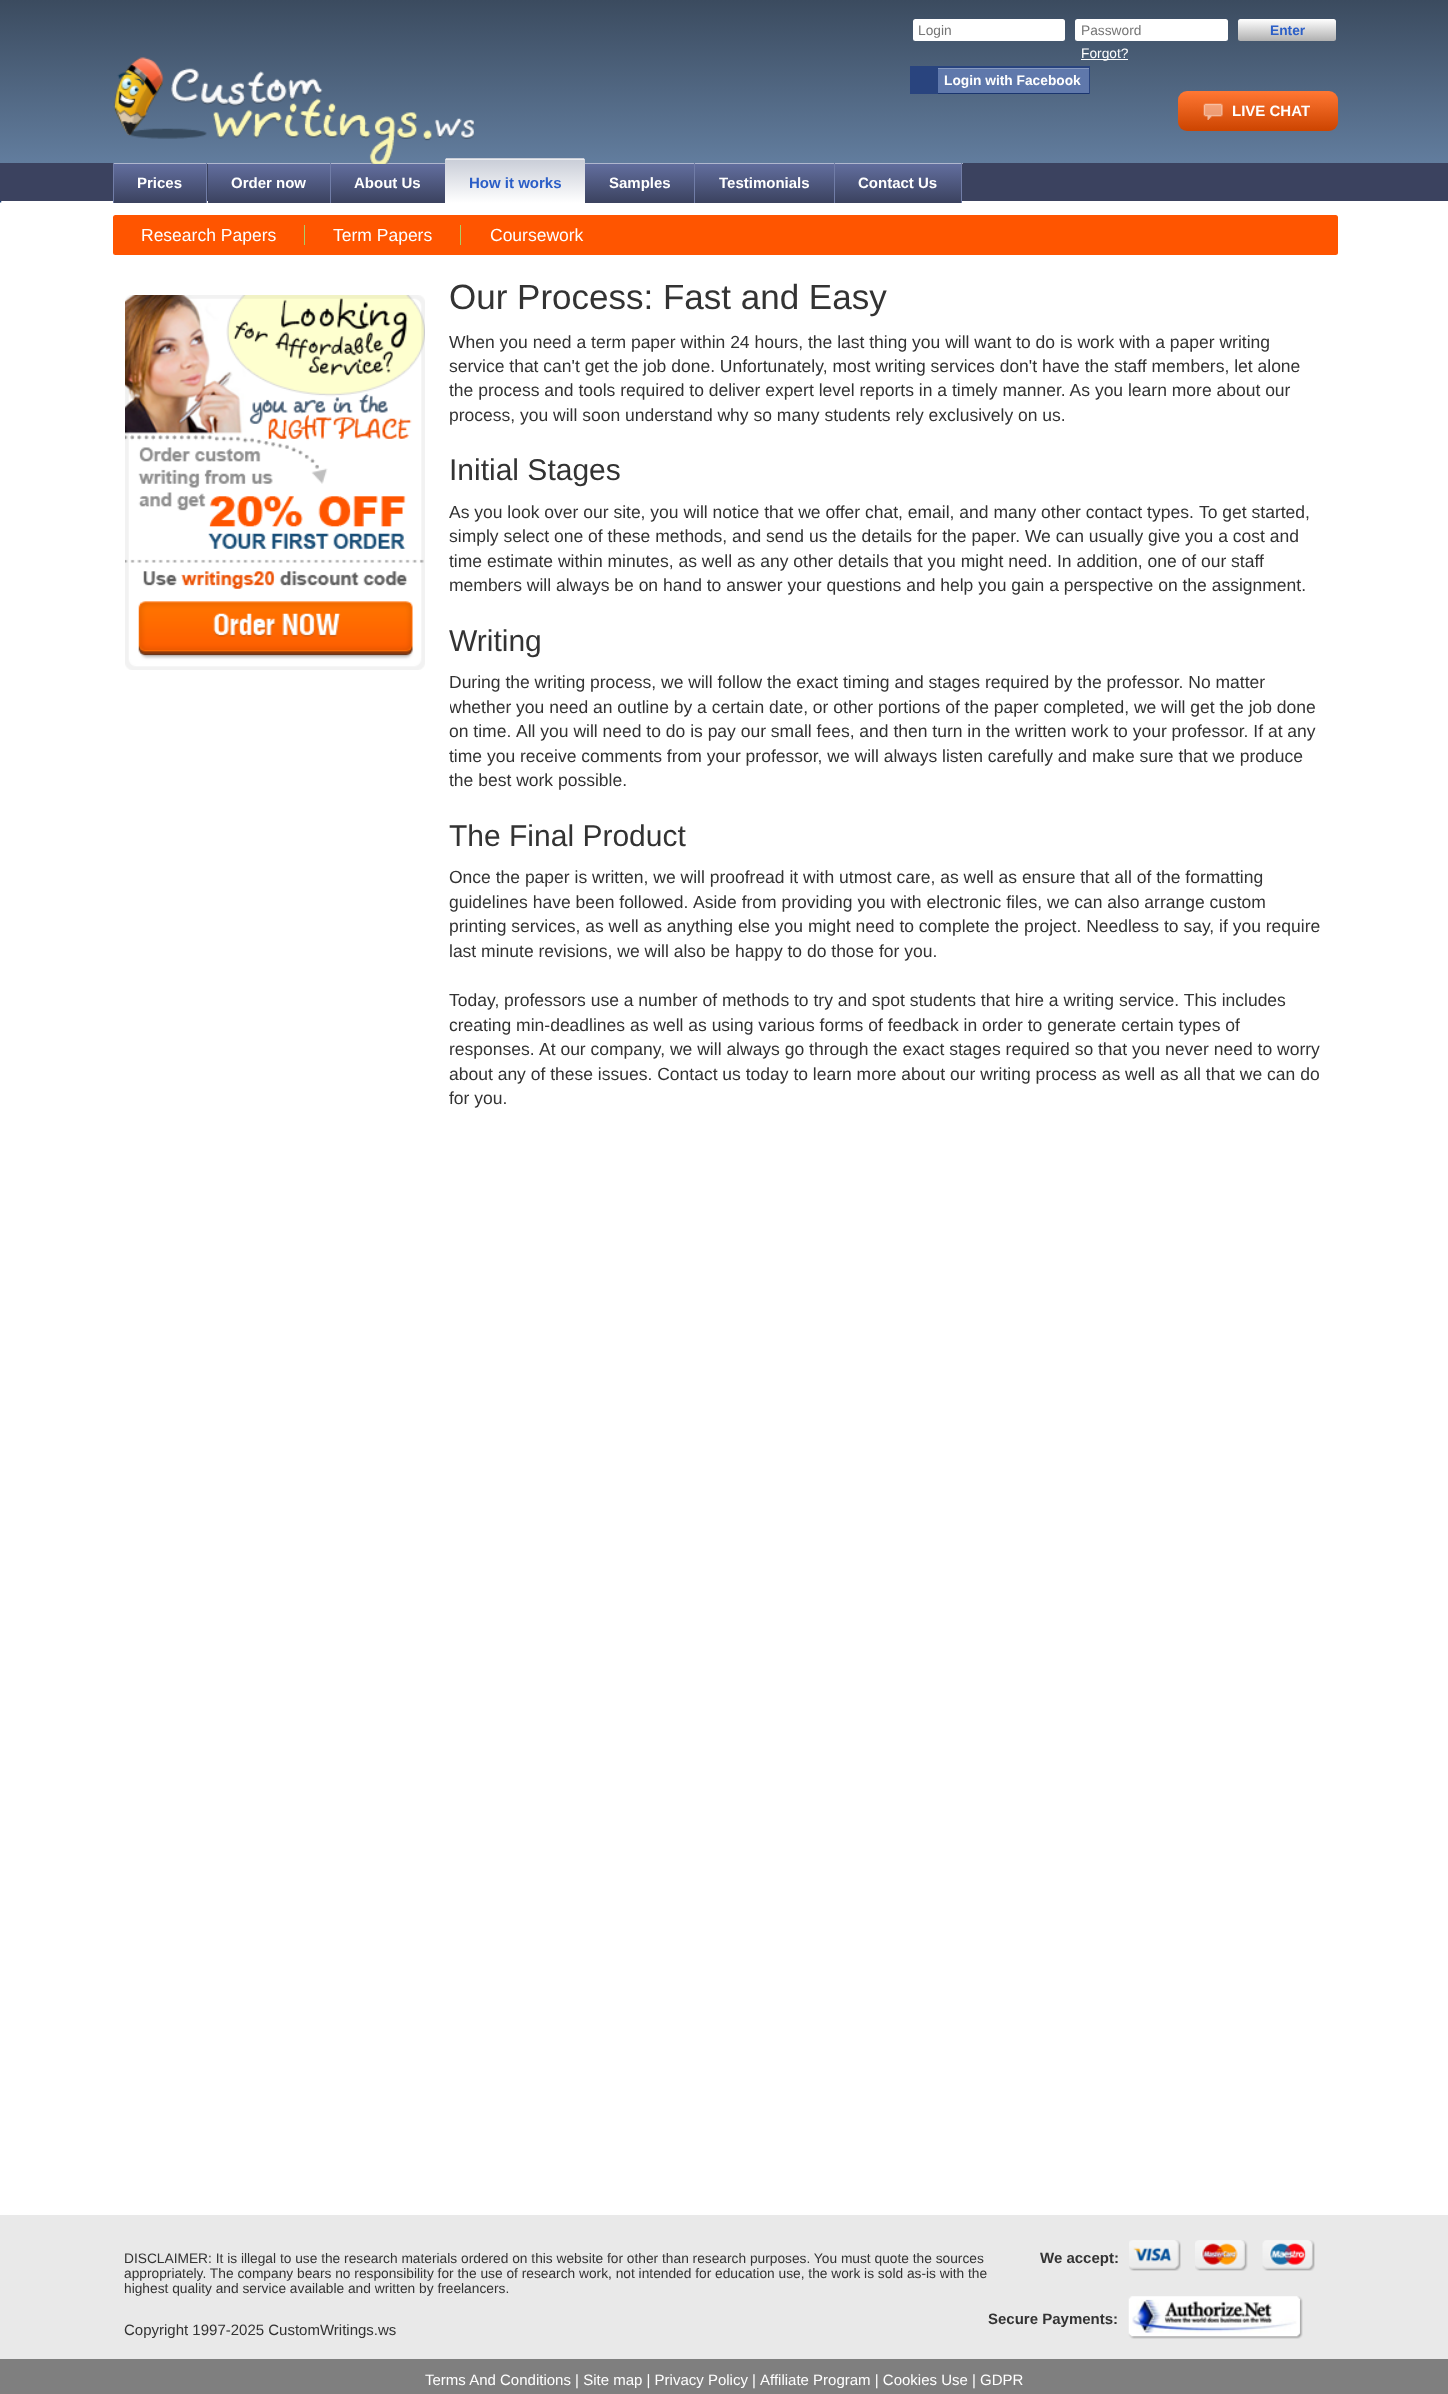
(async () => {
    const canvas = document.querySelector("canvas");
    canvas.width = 1448;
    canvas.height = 2394;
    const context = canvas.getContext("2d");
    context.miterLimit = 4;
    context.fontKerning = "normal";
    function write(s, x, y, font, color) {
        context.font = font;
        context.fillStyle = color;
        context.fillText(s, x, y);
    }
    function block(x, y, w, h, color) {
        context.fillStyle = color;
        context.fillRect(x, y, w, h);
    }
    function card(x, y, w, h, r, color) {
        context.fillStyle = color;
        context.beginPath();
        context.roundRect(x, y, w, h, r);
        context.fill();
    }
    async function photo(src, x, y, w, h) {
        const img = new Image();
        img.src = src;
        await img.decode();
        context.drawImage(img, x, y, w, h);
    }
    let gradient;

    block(0, 0, 1448, 2394, "rgb(255, 255, 255)");
    await photo("media/1.png", 0, 201, 2, 2);
    gradient = context.createLinearGradient(724, 0, 724, 255);
    gradient.addColorStop(0, "rgb(59, 75, 95)");
    gradient.addColorStop(0.64, "rgb(98, 125, 158)");
    gradient.addColorStop(0.64, "rgb(59, 66, 95)");
    gradient.addColorStop(0.79, "rgb(59, 66, 95)");
    gradient.addColorStop(0.79, "rgba(59, 66, 95, 0)");
    context.fillStyle = gradient;
    context.fillRect(0, 0, 1448, 201);
    block(113, 163, 333, 1, "rgb(176, 183, 206)");
    block(113, 163, 1, 40, "rgb(113, 125, 167)");
    block(206, 163, 1, 40, "rgb(113, 125, 167)");
    block(330, 163, 1, 40, "rgb(113, 125, 167)");
    await photo("media/2.png", 113, 57, 361, 107);
    card(913, 19, 152, 22, 2.5, "rgb(255, 255, 255)");
    write("Login", 918, 35, "13.75px Liberation Sans", "rgb(117, 117, 117)");
    card(1075, 19, 153, 22, 2.5, "rgb(255, 255, 255)");
    write("Password", 1081, 35, "13.75px Liberation Sans", "rgb(117, 117, 117)");
    gradient = context.createLinearGradient(1287, 19, 1287, 41);
    gradient.addColorStop(0, "rgb(255, 255, 255)");
    gradient.addColorStop(1, "rgb(176, 176, 176)");
    context.fillStyle = gradient;
    context.beginPath();
    context.roundRect(1238, 19, 98, 22, 2.5);
    context.fill();
    write("Enter", 1270, 35, "bold 13.75px Liberation Sans", "rgb(43, 94, 199)");
    block(1081, 59, 47, 1, "rgb(255, 255, 255)");
    write("Forgot?", 1081, 58, "13.75px Liberation Sans", "rgb(255, 255, 255)");
    block(910, 66, 180, 28, "rgb(41, 68, 126)");
    block(938, 69, 151, 24, "rgb(95, 120, 171)");
    block(938, 68, 151, 1, "rgb(135, 154, 192)");
    block(938, 93, 151, 1, "rgb(26, 53, 110)");
    write("Login with Facebook", 944, 85, "bold 13.75px Liberation Sans", "rgb(255, 255, 255)");
    gradient = context.createLinearGradient(1258, 91, 1258, 131);
    gradient.addColorStop(0, "rgb(255, 119, 51)");
    gradient.addColorStop(1, "rgb(204, 68, 0)");
    context.fillStyle = gradient;
    context.beginPath();
    context.roundRect(1178, 91, 160, 40, 9);
    context.fill();
    await photo("media/3.png", 1203, 103, 20, 17);
    write("LIVE CHAT", 1232, 116, "bold 15px Liberation Sans", "rgb(255, 255, 255)");
    gradient = context.createLinearGradient(160, 164, 160, 203);
    gradient.addColorStop(0, "rgb(98, 110, 158)");
    gradient.addColorStop(1, "rgb(59, 66, 95)");
    context.fillStyle = gradient;
    context.fillRect(114, 164, 92, 39);
    write("Prices", 137, 188, "bold 15px Liberation Sans", "rgb(255, 255, 255)");
    gradient = context.createLinearGradient(269, 164, 269, 203);
    gradient.addColorStop(0, "rgb(98, 110, 158)");
    gradient.addColorStop(1, "rgb(59, 66, 95)");
    context.fillStyle = gradient;
    context.fillRect(208, 164, 122, 39);
    write("Order now", 231, 188, "bold 15px Liberation Sans", "rgb(255, 255, 255)");
    gradient = context.createLinearGradient(388, 164, 388, 203);
    gradient.addColorStop(0, "rgb(98, 110, 158)");
    gradient.addColorStop(1, "rgb(59, 66, 95)");
    context.fillStyle = gradient;
    context.fillRect(331, 164, 114, 39);
    write("About Us", 354, 188, "bold 15px Liberation Sans", "rgb(255, 255, 255)");
    block(584, 163, 379, 1, "rgb(176, 183, 206)");
    context.fillStyle = "rgb(234, 235, 239)";
    context.beginPath();
    context.roundRect(445, 158, 140, 45, [2.5, 2.5, 0, 0]);
    context.fill();
    block(446, 158, 138, 1, "rgb(202, 206, 216)");
    gradient = context.createLinearGradient(515, 160, 515, 203);
    gradient.addColorStop(0, "rgb(202, 206, 216)");
    gradient.addColorStop(1, "rgb(255, 255, 255)");
    context.fillStyle = gradient;
    context.fillRect(445, 160, 140, 43);
    write("How it works", 469, 188, "bold 15px Liberation Sans", "rgb(43, 94, 199)");
    gradient = context.createLinearGradient(639, 164, 639, 203);
    gradient.addColorStop(0, "rgb(98, 110, 158)");
    gradient.addColorStop(1, "rgb(59, 66, 95)");
    context.fillStyle = gradient;
    context.fillRect(585, 164, 109, 39);
    write("Samples", 609, 188, "bold 15px Liberation Sans", "rgb(255, 255, 255)");
    block(694, 163, 1, 40, "rgb(113, 125, 167)");
    gradient = context.createLinearGradient(764, 164, 764, 203);
    gradient.addColorStop(0, "rgb(98, 110, 158)");
    gradient.addColorStop(1, "rgb(59, 66, 95)");
    context.fillStyle = gradient;
    context.fillRect(695, 164, 139, 39);
    write("Testimonials", 719, 188, "bold 15px Liberation Sans", "rgb(255, 255, 255)");
    block(961, 163, 1, 40, "rgb(113, 125, 167)");
    block(834, 163, 1, 40, "rgb(113, 125, 167)");
    gradient = context.createLinearGradient(898, 164, 898, 203);
    gradient.addColorStop(0, "rgb(98, 110, 158)");
    gradient.addColorStop(1, "rgb(59, 66, 95)");
    context.fillStyle = gradient;
    context.fillRect(835, 164, 126, 39);
    write("Contact Us", 858, 188, "bold 15px Liberation Sans", "rgb(255, 255, 255)");
    card(113, 215, 1225, 40, 2.5, "rgb(255, 85, 0)");
    write("Research Papers", 141, 241, "17.5px Liberation Sans", "rgb(255, 255, 255)");
    block(304, 225, 1, 20, "rgb(172, 206, 103)");
    write("Term Papers", 333, 241, "17.5px Liberation Sans", "rgb(255, 255, 255)");
    block(460, 225, 1, 20, "rgb(172, 206, 103)");
    write("Coursework", 490, 241, "17.5px Liberation Sans", "rgb(255, 255, 255)");
    await photo("media/4.png", 125, 295, 300, 375);
    write("Our Process: Fast and Easy", 449, 309, "35px Liberation Sans", "rgb(51, 51, 51)");
    write("When you need a term paper within 24 hours, the last thing you will want to do is work with a paper writing", 449, 348, "17.5px Liberation Sans", "rgb(51, 51, 51)");
    write("service that can't get the job done. Unfortunately, most writing services don't have the staff members, let alone", 449, 372, "17.5px Liberation Sans", "rgb(51, 51, 51)");
    write("the process and tools required to deliver expert level reports in a timely manner. As you learn more about our", 449, 396, "17.5px Liberation Sans", "rgb(51, 51, 51)");
    write("process, you will soon understand why so many students rely exclusively on us.", 449, 421, "17.5px Liberation Sans", "rgb(51, 51, 51)");
    write("Initial Stages", 449, 480, "30px Liberation Sans", "rgb(51, 51, 51)");
    write("As you look over our site, you will notice that we offer chat, email, and many other contact types.", 449, 518, "17.5px Liberation Sans", "rgb(51, 51, 51)");
    write("To get started,", 1199, 518, "17.5px Liberation Sans", "rgb(51, 51, 51)");
    write("simply select one of these methods, and send us the details for the paper. We can usually give you a cost and", 449, 542, "17.5px Liberation Sans", "rgb(51, 51, 51)");
    write("time estimate within minutes, as well as any other details that you might need. In addition, one of our staff", 449, 567, "17.5px Liberation Sans", "rgb(51, 51, 51)");
    write("members will always be on hand to answer your questions and help you gain a perspective on the assignment.", 449, 591, "17.5px Liberation Sans", "rgb(51, 51, 51)");
    write("Writing", 449, 651, "30px Liberation Sans", "rgb(51, 51, 51)");
    write("During the writing process, we will follow the exact timing and stages required by the professor. No matter", 449, 688, "17.5px Liberation Sans", "rgb(51, 51, 51)");
    context.save();
    context.beginPath();
    context.rect(450, 278, 875, 858);
    context.clip();
    write("whether you need an outline by a certain date, or other portions of the paper completed, we will get the job done", 449, 713, "17.5px Liberation Sans", "rgb(51, 51, 51)");
    context.restore();
    write("on time.", 449, 737, "17.5px Liberation Sans", "rgb(51, 51, 51)");
    write("All you will need to do is pay our small fees, and then turn in the written work to your professor. If at any", 516, 737, "17.5px Liberation Sans", "rgb(51, 51, 51)");
    write("time you receive comments from your professor, we will always listen carefully and make sure that we produce", 449, 762, "17.5px Liberation Sans", "rgb(51, 51, 51)");
    write("the best work possible.", 449, 786, "17.5px Liberation Sans", "rgb(51, 51, 51)");
    write("The Final Product", 449, 846, "30px Liberation Sans", "rgb(51, 51, 51)");
    write("Once the paper is written, we will proofread it with utmost care, as well as ensure that all of the formatting", 449, 883, "17.5px Liberation Sans", "rgb(51, 51, 51)");
    write("guidelines have been followed.", 449, 908, "17.5px Liberation Sans", "rgb(51, 51, 51)");
    write("Aside from providing you with electronic files, we can also arrange custom", 693, 908, "17.5px Liberation Sans", "rgb(51, 51, 51)");
    write("printing services, as well as anything else you might need to complete the project. Needless to say, if you require", 449, 932, "17.5px Liberation Sans", "rgb(51, 51, 51)");
    write("last minute revisions, we will also be happy to do those for you.", 449, 957, "17.5px Liberation Sans", "rgb(51, 51, 51)");
    write("Today, professors use a number of methods to try and spot students that hire a writing service. This includes", 449, 1006, "17.5px Liberation Sans", "rgb(51, 51, 51)");
    write("creating min-deadlines as well as using various forms of feedback in order to generate certain types of", 449, 1031, "17.5px Liberation Sans", "rgb(51, 51, 51)");
    write("responses.", 449, 1055, "17.5px Liberation Sans", "rgb(51, 51, 51)");
    write("At our company, we will always go through the exact stages required so that you never need to worry", 539, 1055, "17.5px Liberation Sans", "rgb(51, 51, 51)");
    write("about any of these issues. Contact us today to learn more about our writing process as well as all that we can do", 449, 1080, "17.5px Liberation Sans", "rgb(51, 51, 51)");
    write("for you.", 449, 1104, "17.5px Liberation Sans", "rgb(51, 51, 51)");
    block(0, 2215, 1448, 144, "rgb(233, 233, 233)");
    block(0, 2359, 1448, 35, "rgb(127, 127, 127)");
    write("DISCLAIMER: It is illegal to use the research materials ordered on this website for other than research purposes. You must quote the sources", 124, 2263, "13.75px Liberation Sans", "rgb(51, 51, 51)");
    write("appropriately. The company bears no responsibility for the use of research work, not intended for education use, the work is sold as-is with the", 124, 2278, "13.75px Liberation Sans", "rgb(51, 51, 51)");
    write("highest quality and service available and written by freelancers.", 124, 2293, "13.75px Liberation Sans", "rgb(51, 51, 51)");
    write("We accept:", 1040, 2263, "bold 15px Liberation Sans", "rgb(51, 51, 51)");
    await photo("media/5.png", 1129, 2240, 52, 31);
    await photo("media/6.png", 1195, 2240, 53, 31);
    await photo("media/7.png", 1262, 2240, 53, 31);
    write("Secure Payments:", 988, 2324, "bold 15px Liberation Sans", "rgb(51, 51, 51)");
    await photo("media/8.png", 1128, 2296, 175, 43);
    write("Copyright 1997-2025 CustomWritings.ws", 124, 2335, "15px Liberation Sans", "rgb(51, 51, 51)");
    write("Terms And Conditions | Site map | Privacy Policy |", 425, 2385, "15px Liberation Sans", "rgb(255, 255, 255)");
    write("Affiliate Program | Cookies Use | GDPR", 760, 2385, "15px Liberation Sans", "rgb(255, 255, 255)");
})();
